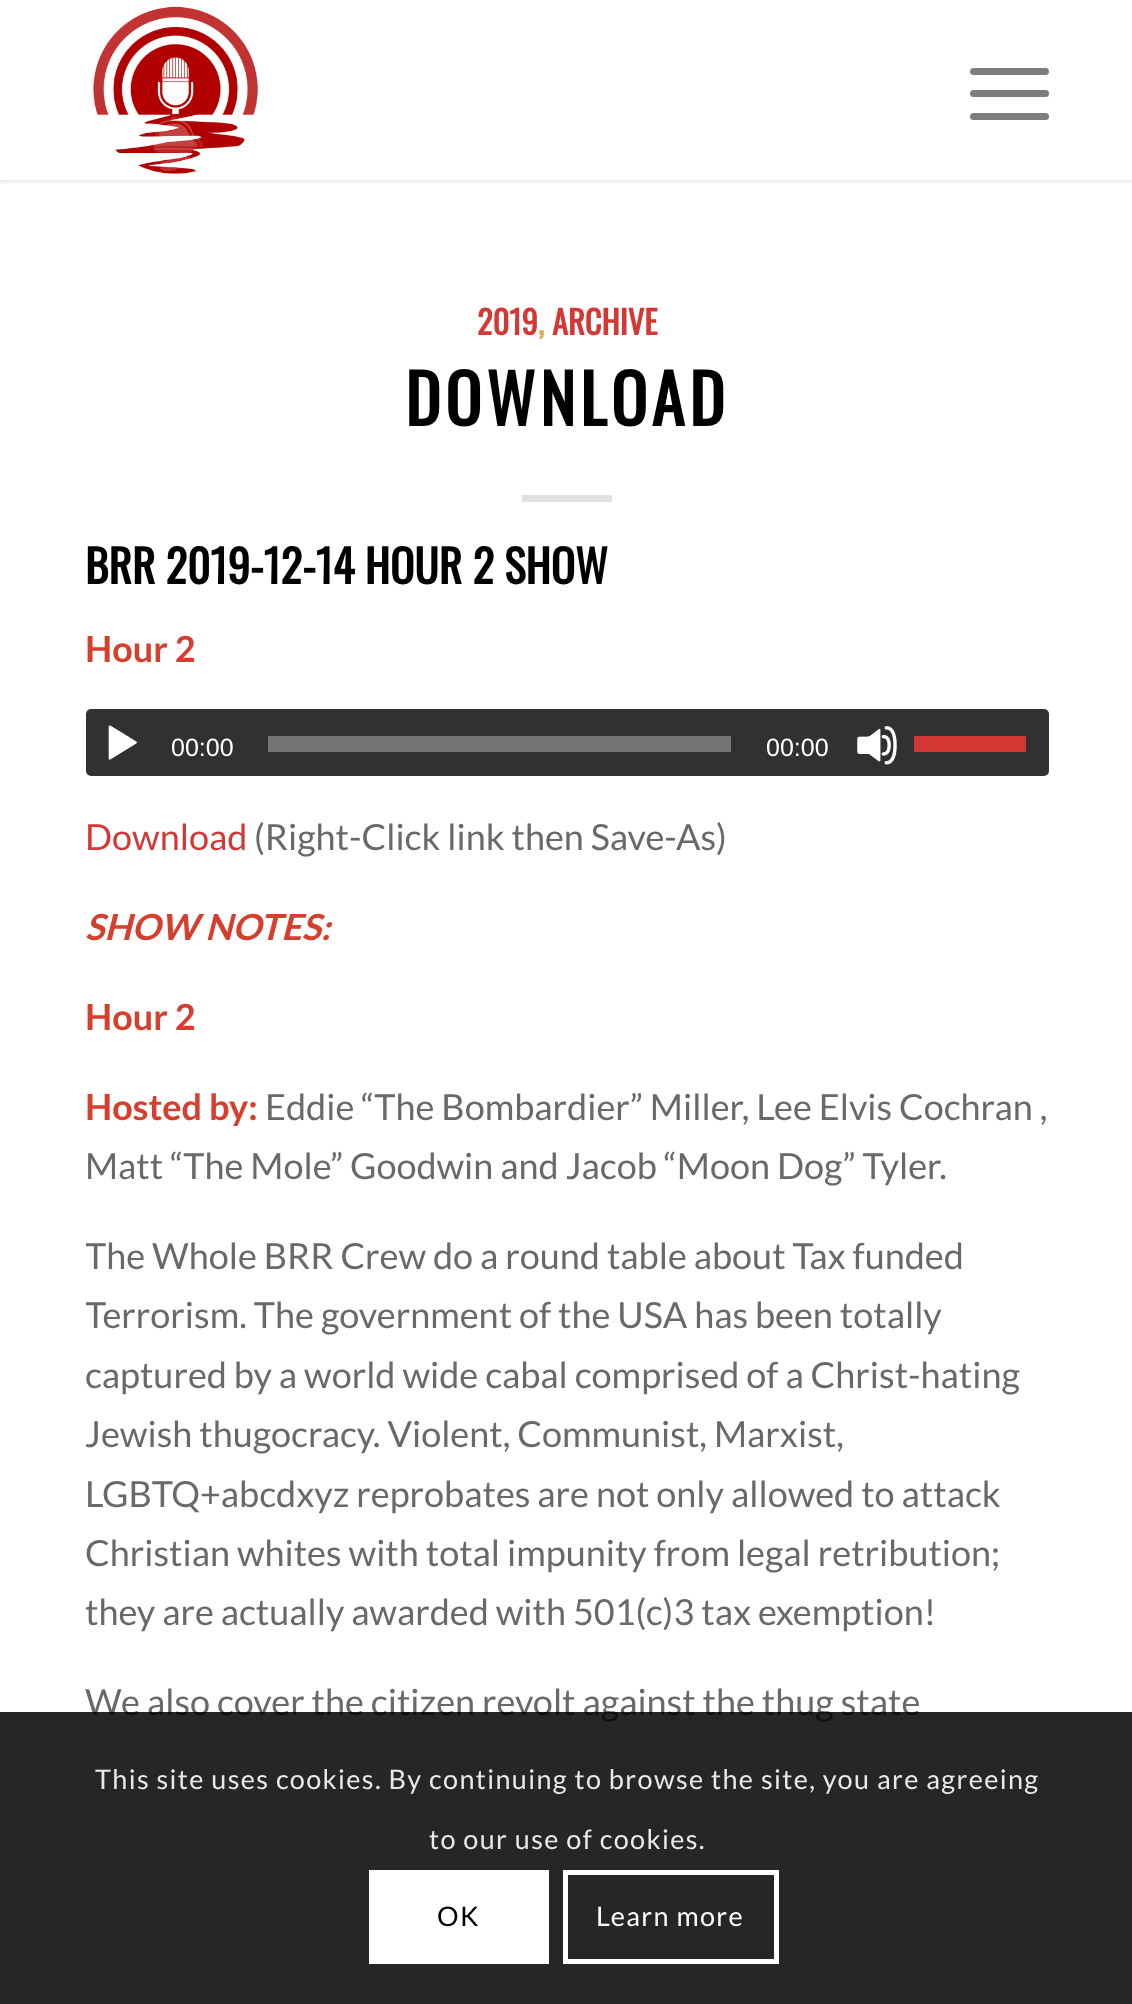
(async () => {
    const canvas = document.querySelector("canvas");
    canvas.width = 1132;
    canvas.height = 2004;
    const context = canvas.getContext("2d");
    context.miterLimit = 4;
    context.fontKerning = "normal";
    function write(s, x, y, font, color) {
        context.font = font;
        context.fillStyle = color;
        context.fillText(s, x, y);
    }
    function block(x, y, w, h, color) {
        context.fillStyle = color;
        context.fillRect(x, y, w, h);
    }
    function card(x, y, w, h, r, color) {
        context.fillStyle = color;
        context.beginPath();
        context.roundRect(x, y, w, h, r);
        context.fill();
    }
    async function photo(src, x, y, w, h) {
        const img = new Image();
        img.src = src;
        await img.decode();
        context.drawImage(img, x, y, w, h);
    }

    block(0, 0, 1132, 2004, "rgb(255, 255, 255)");
    context.save();
    context.beginPath();
    context.rect(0, 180, 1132, 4);
    context.clip();
    context.fillStyle = "rgba(0, 0, 0, 0.1)";
    context.filter = "blur(2px)";
    context.beginPath();
    context.rect(-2, -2, 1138, 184);
    context.fill();
    context.filter = "none";
    context.restore();
    await photo("media/1.png", 93, 6, 165, 168);
    card(970, 90, 79, 7, 3.5, "rgb(125, 125, 125)");
    card(970, 68, 79, 7, 3.5, "rgb(125, 125, 125)");
    card(970, 113, 79, 7, 3.5, "rgb(125, 125, 125)");
    write("2019", 477, 335, "bold 32.5px Oswald", "rgb(212, 56, 53)");
    write(",", 538, 335, "bold 32.5px Oswald", "rgb(217, 174, 87)");
    write("ARCHIVE", 552, 335, "bold 32.5px Oswald", "rgb(212, 56, 53)");
    context.letterSpacing = "4.5px";
    write("DOWNLOAD", 405, 426, "bold 67.5px Oswald", "rgb(0, 0, 0)");
    block(522, 495, 90, 7, "rgb(225, 225, 225)");
    context.letterSpacing = "0px";
    write("BRR 2019-12-14 HOUR 2 SHOW", 85, 584, "bold 45px Oswald", "rgb(0, 0, 0)");
    write("Hour 2", 85, 662, "bold 36px Lato", "rgb(214, 62, 45)");
    card(86, 709, 963, 67, 5, "rgb(49, 49, 49)");
    await photo("media/2.png", 108, 725, 29, 35);
    write("00:00", 171, 756, "25px Liberation Sans", "rgb(255, 255, 255)");
    block(268, 736, 463, 16, "rgb(117, 117, 117)");
    write("00:00", 766, 756, "25px Liberation Sans", "rgb(255, 255, 255)");
    await photo("media/3.png", 857, 726, 40, 39);
    block(914, 736, 112, 16, "rgb(212, 56, 53)");
    write("Download", 85, 850, "36px Lato", "rgb(212, 56, 53)");
    write("(Right-Click link then Save-As)", 254, 850, "36px Lato", "rgb(105, 105, 105)");
    write("SHOW NOTES:", 85, 940, "italic bold 36px Lato", "rgb(214, 62, 45)");
    write("Hour 2", 85, 1030, "bold 36px Lato", "rgb(214, 62, 45)");
    write("Hosted by:", 85, 1120, "bold 36px Lato", "rgb(214, 62, 45)");
    write("Eddie “The Bombardier” Miller, Lee Elvis Cochran ,", 265, 1120, "36px Lato", "rgb(105, 105, 105)");
    write("Matt “The Mole” Goodwin and Jacob “Moon Dog” Tyler.", 85, 1179, "36px Lato", "rgb(105, 105, 105)");
    context.save();
    context.beginPath();
    context.rect(86, 293, 963, 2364);
    context.clip();
    write("The Whole BRR Crew do a round table about Tax funded", 85, 1269, "36px Lato", "rgb(105, 105, 105)");
    write("Terrorism. The government of the USA has been totally", 85, 1328, "36px Lato", "rgb(105, 105, 105)");
    context.restore();
    write("captured by a world wide cabal comprised of a Christ-hating", 85, 1388, "36px Lato", "rgb(105, 105, 105)");
    write("Jewish thugocracy. Violent, Communist, Marxist,", 85, 1447, "36px Lato", "rgb(105, 105, 105)");
    write("LGBTQ+abcdxyz reprobates are not only allowed to attack", 85, 1507, "36px Lato", "rgb(105, 105, 105)");
    write("Christian whites with total impunity from legal retribution;", 85, 1566, "36px Lato", "rgb(105, 105, 105)");
    write("they are actually awarded with 501(c)3 tax exemption!", 85, 1625, "36px Lato", "rgb(105, 105, 105)");
    write("We also cover the citizen revolt against the thug state", 85, 1715, "36px Lato", "rgb(105, 105, 105)");
    block(0, 1712, 1132, 292, "rgba(0, 0, 0, 0.85)");
    context.letterSpacing = "1.35px";
    write("This site uses cookies. By continuing to browse the site, you are agreeing", 95, 1789, "27px Lato", "rgb(233, 233, 233)");
    write("to our use of cookies.", 429, 1849, "27px Lato", "rgb(233, 233, 233)");
    block(369, 1870, 180, 94, "rgb(255, 255, 255)");
    write("OK", 437, 1926, "27px Lato", "rgb(0, 0, 0)");
    context.strokeStyle = "rgb(255, 255, 255)";
    context.lineWidth = 5;
    context.strokeRect(565.5, 1872.5, 211, 89);
    write("Learn more", 596, 1926, "27px Lato", "rgb(255, 255, 255)");
})();
